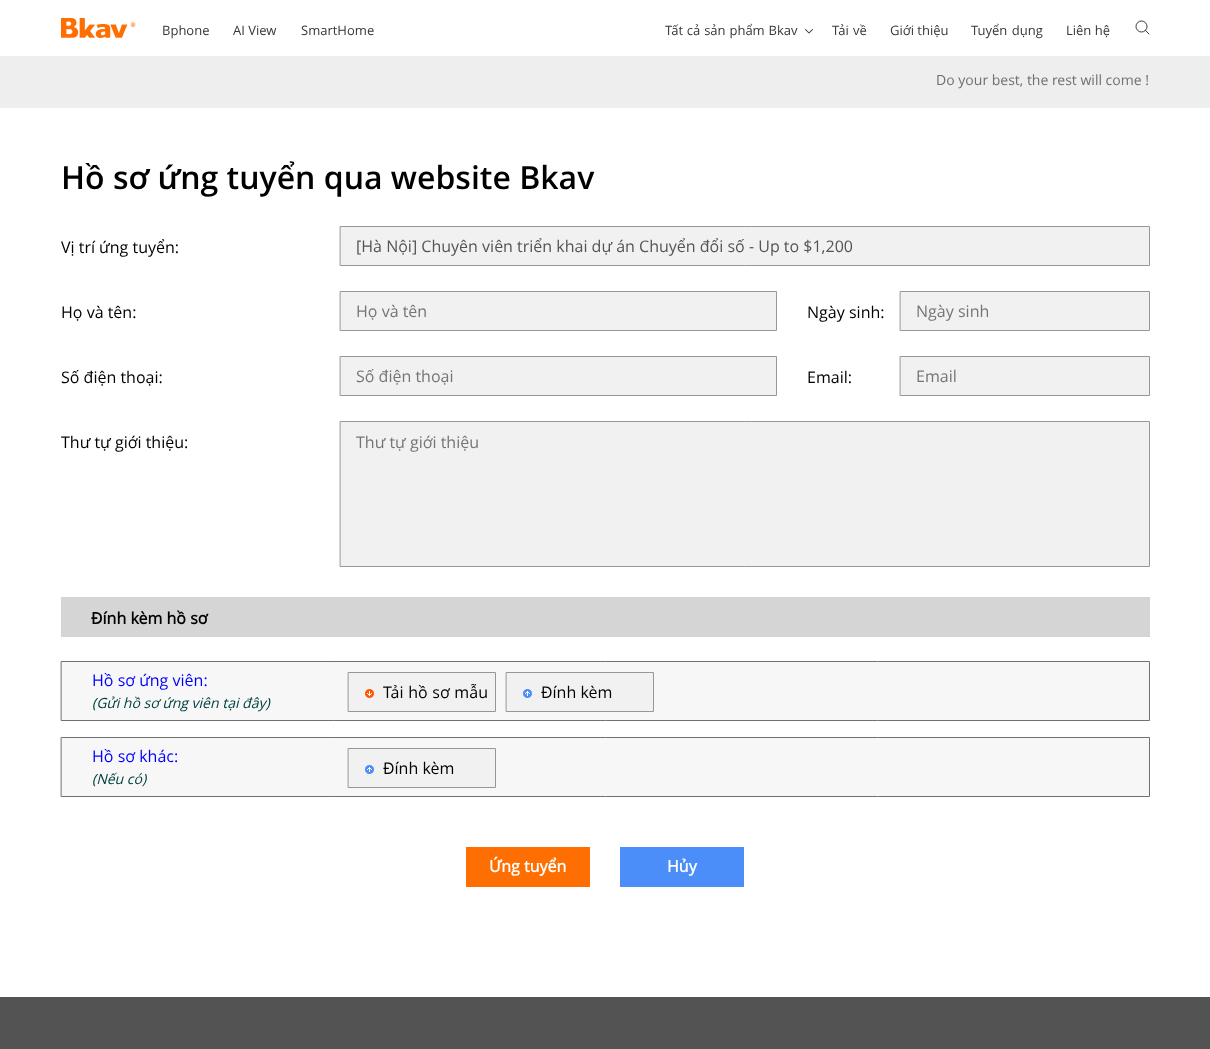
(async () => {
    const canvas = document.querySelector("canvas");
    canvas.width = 1210;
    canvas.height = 1049;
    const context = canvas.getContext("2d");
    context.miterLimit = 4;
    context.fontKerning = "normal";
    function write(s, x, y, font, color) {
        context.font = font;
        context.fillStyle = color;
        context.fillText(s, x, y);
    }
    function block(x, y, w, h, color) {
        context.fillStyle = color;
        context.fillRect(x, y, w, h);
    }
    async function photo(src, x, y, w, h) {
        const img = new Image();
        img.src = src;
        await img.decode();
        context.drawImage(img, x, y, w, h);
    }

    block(0, 0, 1210, 1049, "rgb(255, 255, 255)");
    await photo("media/1.png", 61, 18, 75, 20);
    write("Bphone", 162, 35, "13px Open Sans", "rgb(55, 55, 55)");
    write("AI View", 233, 35, "13px Open Sans", "rgb(55, 55, 55)");
    write("SmartHome", 301, 35, "13px Open Sans", "rgb(55, 55, 55)");
    context.wordSpacing = "0.5px";
    write("Tất cả sản phẩm Bkav", 665, 35, "13px Open Sans", "rgb(55, 55, 55)");
    await photo("media/2.png", 805, 29, 8, 5);
    context.wordSpacing = "1px";
    write("Tải về", 832, 35, "13px Open Sans", "rgb(55, 55, 55)");
    context.wordSpacing = "0px";
    write("Giới thiệu", 890, 35, "13px Open Sans", "rgb(55, 55, 55)");
    context.wordSpacing = "1px";
    write("Tuyển dụng", 971, 35, "13px Open Sans", "rgb(55, 55, 55)");
    context.wordSpacing = "0px";
    write("Liên hệ", 1066, 35, "13px Open Sans", "rgb(55, 55, 55)");
    context.beginPath();
    context.arc(1141.5, 26.5, 5.5, 0, Math.PI * 2);
    context.strokeStyle = "rgb(55, 55, 55)";
    context.stroke();
    context.beginPath();
    context.moveTo(1145.5, 30.5);
    context.lineTo(1149, 34);
    context.lineCap = "round";
    context.stroke();
    block(0, 56, 1210, 52, "rgb(238, 238, 238)");
    write("Do your best, the rest will come !", 936, 85, "14px Open Sans", "rgb(111, 111, 111)");
    write("Hồ sơ ứng tuyển qua website Bkav", 61, 189, "600 32px Open Sans", "rgb(0, 0, 0)");
    write("Vị trí ứng tuyển:", 61, 253, "16px Open Sans", "rgb(0, 0, 0)");
    context.fillStyle = "rgb(241, 241, 241)";
    context.beginPath();
    context.rect(340.5, 226.5, 809, 39);
    context.fill();
    context.strokeStyle = "rgb(149, 152, 154)";
    context.stroke();
    write("[Hà Nội] Chuyên viên triển khai dự án Chuyển đổi số - Up to $1,200", 356, 252, "16px Open Sans", "rgb(84, 84, 84)");
    write("Họ và tên:", 61, 318, "16px Open Sans", "rgb(0, 0, 0)");
    context.fillStyle = "rgb(241, 241, 241)";
    context.beginPath();
    context.rect(340.5, 291.5, 436, 39);
    context.fill();
    context.stroke();
    write("Họ và tên", 356, 317, "16px Open Sans", "rgb(117, 117, 117)");
    write("Ngày sinh:", 807, 318, "16px Open Sans", "rgb(0, 0, 0)");
    context.fillStyle = "rgb(241, 241, 241)";
    context.beginPath();
    context.rect(900.5, 291.5, 249, 39);
    context.fill();
    context.stroke();
    write("Ngày sinh", 916, 317, "16px Open Sans", "rgb(117, 117, 117)");
    write("Số điện thoại:", 61, 383, "16px Open Sans", "rgb(0, 0, 0)");
    context.fillStyle = "rgb(241, 241, 241)";
    context.beginPath();
    context.rect(340.5, 356.5, 436, 39);
    context.fill();
    context.stroke();
    write("Số điện thoại", 356, 382, "16px Open Sans", "rgb(117, 117, 117)");
    write("Email:", 807, 383, "16px Open Sans", "rgb(0, 0, 0)");
    context.fillStyle = "rgb(241, 241, 241)";
    context.beginPath();
    context.rect(900.5, 356.5, 249, 39);
    context.fill();
    context.stroke();
    write("Email", 916, 382, "16px Open Sans", "rgb(117, 117, 117)");
    write("Thư tự giới thiệu:", 61, 448, "16px Open Sans", "rgb(0, 0, 0)");
    context.fillStyle = "rgb(241, 241, 241)";
    context.beginPath();
    context.rect(340.5, 421.5, 809, 145);
    context.fill();
    context.stroke();
    write("Thư tự giới thiệu", 356, 448, "16px Open Sans", "rgb(117, 117, 117)");
    block(61, 597, 1089, 40, "rgb(213, 213, 213)");
    write("Đính kèm hồ sơ", 91, 624, "bold 16px Open Sans", "rgb(0, 0, 0)");
    context.fillStyle = "rgb(247, 247, 247)";
    context.beginPath();
    context.rect(61.5, 661.5, 1088, 59);
    context.fill();
    context.strokeStyle = "rgb(112, 112, 112)";
    context.stroke();
    write("Hồ sơ ứng viên:", 92, 686, "16px Open Sans", "rgb(0, 0, 255)");
    write("(Gửi hồ sơ ứng viên tại đây)", 92, 708, "italic 14px Open Sans", "rgb(0, 64, 64)");
    context.fillStyle = "rgb(241, 241, 241)";
    context.beginPath();
    context.rect(348.5, 672.5, 147, 39);
    context.fill();
    context.strokeStyle = "rgb(149, 152, 154)";
    context.stroke();
    await photo("media/3.png", 365, 689, 9, 9);
    context.wordSpacing = "0.5px";
    write("Tải hồ sơ mẫu", 383, 698, "16px Open Sans", "rgb(0, 0, 0)");
    context.fillStyle = "rgb(241, 241, 241)";
    context.beginPath();
    context.rect(506.5, 672.5, 147, 39);
    context.fill();
    context.stroke();
    await photo("media/4.png", 523, 689, 9, 9);
    context.wordSpacing = "0px";
    write("Đính kèm", 541, 698, "16px Open Sans", "rgb(0, 0, 0)");
    context.fillStyle = "rgb(247, 247, 247)";
    context.beginPath();
    context.rect(61.5, 737.5, 1088, 59);
    context.fill();
    context.strokeStyle = "rgb(112, 112, 112)";
    context.stroke();
    write("Hồ sơ khác:", 92, 762, "16px Open Sans", "rgb(0, 0, 255)");
    write("(Nếu có)", 92, 784, "italic 14px Open Sans", "rgb(0, 64, 64)");
    context.fillStyle = "rgb(241, 241, 241)";
    context.beginPath();
    context.rect(348.5, 748.5, 147, 39);
    context.fill();
    context.strokeStyle = "rgb(149, 152, 154)";
    context.stroke();
    await photo("media/4.png", 365, 765, 9, 9);
    write("Đính kèm", 383, 774, "16px Open Sans", "rgb(0, 0, 0)");
    block(466, 847, 124, 40, "rgb(255, 110, 1)");
    write("Ứng tuyển", 489, 872, "bold 16px Open Sans", "rgb(255, 255, 255)");
    block(620, 847, 124, 40, "rgb(75, 142, 249)");
    write("Hủy", 667, 872, "bold 16px Open Sans", "rgb(255, 255, 255)");
    block(0, 997, 1210, 52, "rgb(84, 83, 83)");
})();
